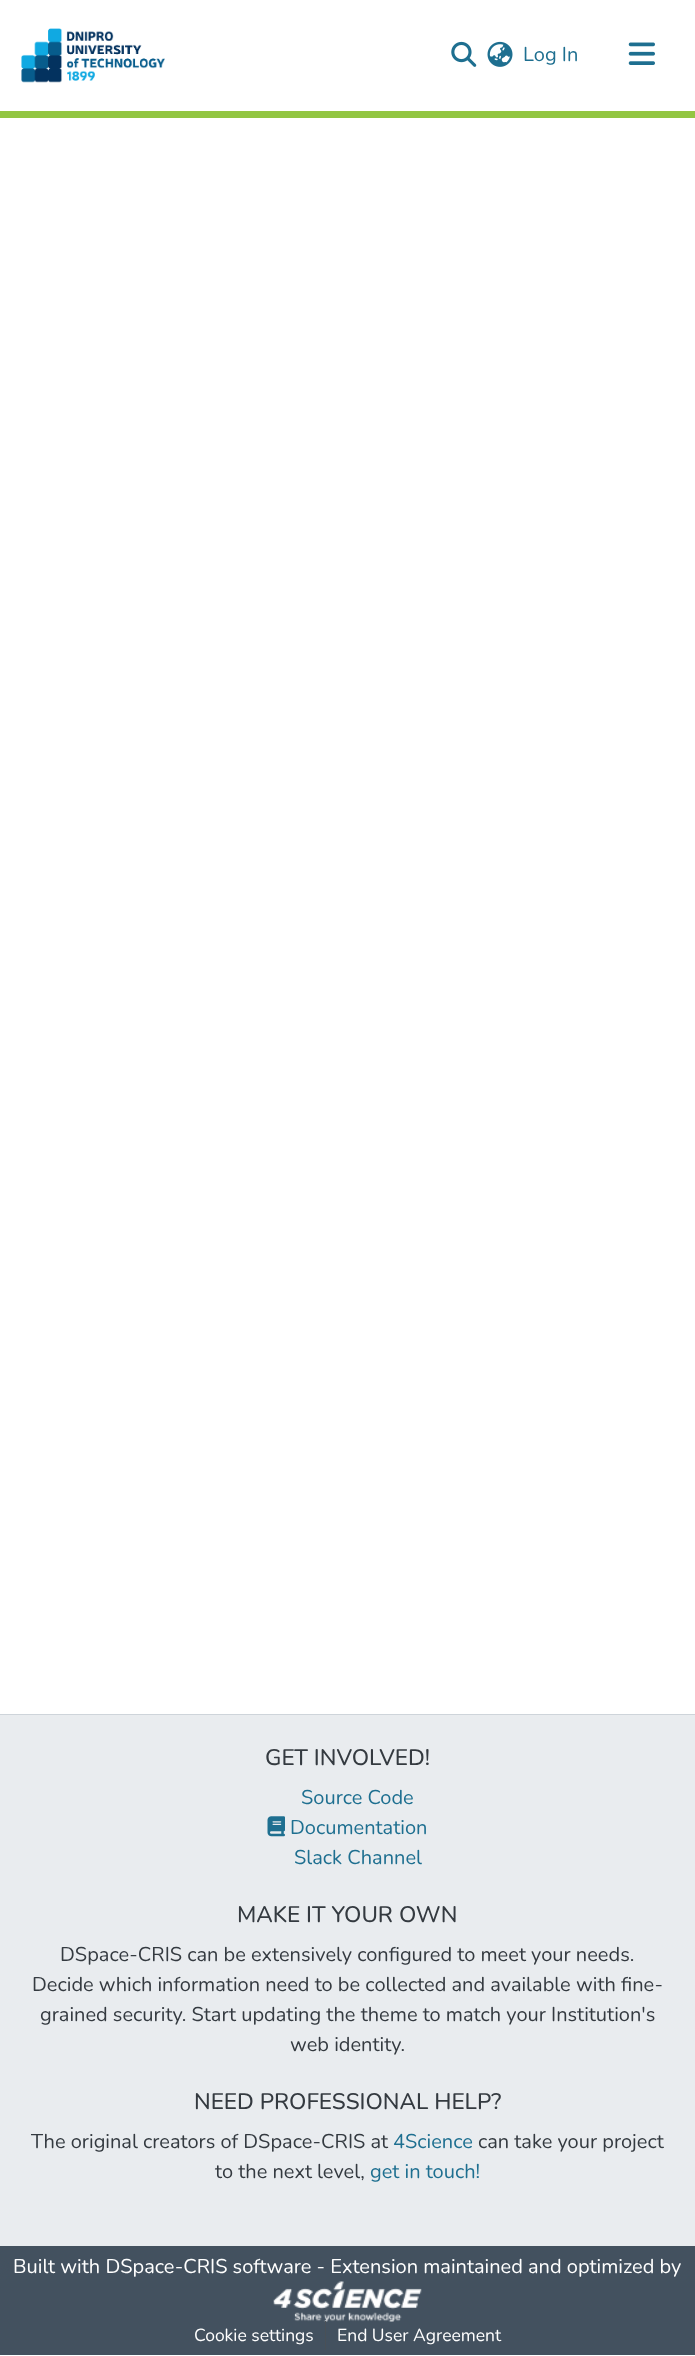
(async () => {
    const canvas = document.querySelector("canvas");
    canvas.width = 695;
    canvas.height = 2356;
    const context = canvas.getContext("2d");
    context.miterLimit = 4;
    context.fontKerning = "normal";
    function write(s, x, y, font, color) {
        context.font = font;
        context.fillStyle = color;
        context.fillText(s, x, y);
    }
    function block(x, y, w, h, color) {
        context.fillStyle = color;
        context.fillRect(x, y, w, h);
    }
    async function photo(src, x, y, w, h) {
        const img = new Image();
        img.src = src;
        await img.decode();
        context.drawImage(img, x, y, w, h);
    }

    block(0, 0, 695, 2356, "rgb(255, 255, 255)");
    block(0, 111, 695, 7, "rgb(146, 198, 66)");
    await photo("media/1.png", 21, 28, 144, 55);
    await photo("media/2.png", 451, 41, 26, 26);
    await photo("media/3.png", 487, 41, 26, 26);
    write("Log In", 523, 61, "20px Nunito", "rgb(30, 111, 144)");
    await photo("media/4.png", 628, 42, 27, 23);
    block(0, 2246, 695, 109, "rgb(67, 81, 95)");
    block(0, 1714, 695, 1, "rgb(206, 212, 218)");
    block(0, 1715, 695, 531, "rgb(233, 236, 239)");
    write("GET INVOLVED!", 265, 1765, "500 22.5px Nunito", "rgb(52, 58, 64)");
    write("Source Code", 301, 1804, "20px Nunito", "rgb(30, 111, 144)");
    await photo("media/5.png", 267, 1816, 18, 21);
    write("Documentation", 290, 1834, "20px Nunito", "rgb(30, 111, 144)");
    write("Slack Channel", 294, 1864, "20px Nunito", "rgb(30, 111, 144)");
    write("MAKE IT YOUR OWN", 237, 1922, "500 22.5px Nunito", "rgb(52, 58, 64)");
    write("DSpace-CRIS can be extensively configured to meet your needs.", 60, 1961, "20px Nunito", "rgb(52, 58, 64)");
    write("Decide which information need to be collected and available with fine-", 32, 1991, "20px Nunito", "rgb(52, 58, 64)");
    write("grained security. Start updating the theme to match your Institution's", 40, 2021, "20px Nunito", "rgb(52, 58, 64)");
    write("web identity.", 290, 2051, "20px Nunito", "rgb(52, 58, 64)");
    write("NEED PROFESSIONAL HELP?", 194, 2109, "500 22.5px Nunito", "rgb(52, 58, 64)");
    write("The original creators of DSpace-CRIS at", 31, 2148, "20px Nunito", "rgb(52, 58, 64)");
    write("4Science", 393, 2148, "20px Nunito", "rgb(30, 111, 144)");
    write("can take your project", 478, 2148, "20px Nunito", "rgb(52, 58, 64)");
    write("to the next level,", 215, 2178, "20px Nunito", "rgb(52, 58, 64)");
    write("get in touch!", 370, 2178, "20px Nunito", "rgb(30, 111, 144)");
    write("Built with DSpace-CRIS software - Extension maintained and optimized by", 13, 2273, "20px Nunito", "rgb(255, 255, 255)");
    await photo("media/6.png", 273, 2281, 149, 41);
    write("Cookie settings", 194, 2341, "17.5px Nunito", "rgb(255, 255, 255)");
    block(325, 2321, 1, 29, "rgb(73, 80, 87)");
    write("End User Agreement", 337, 2341, "17.5px Nunito", "rgb(255, 255, 255)");
})();
